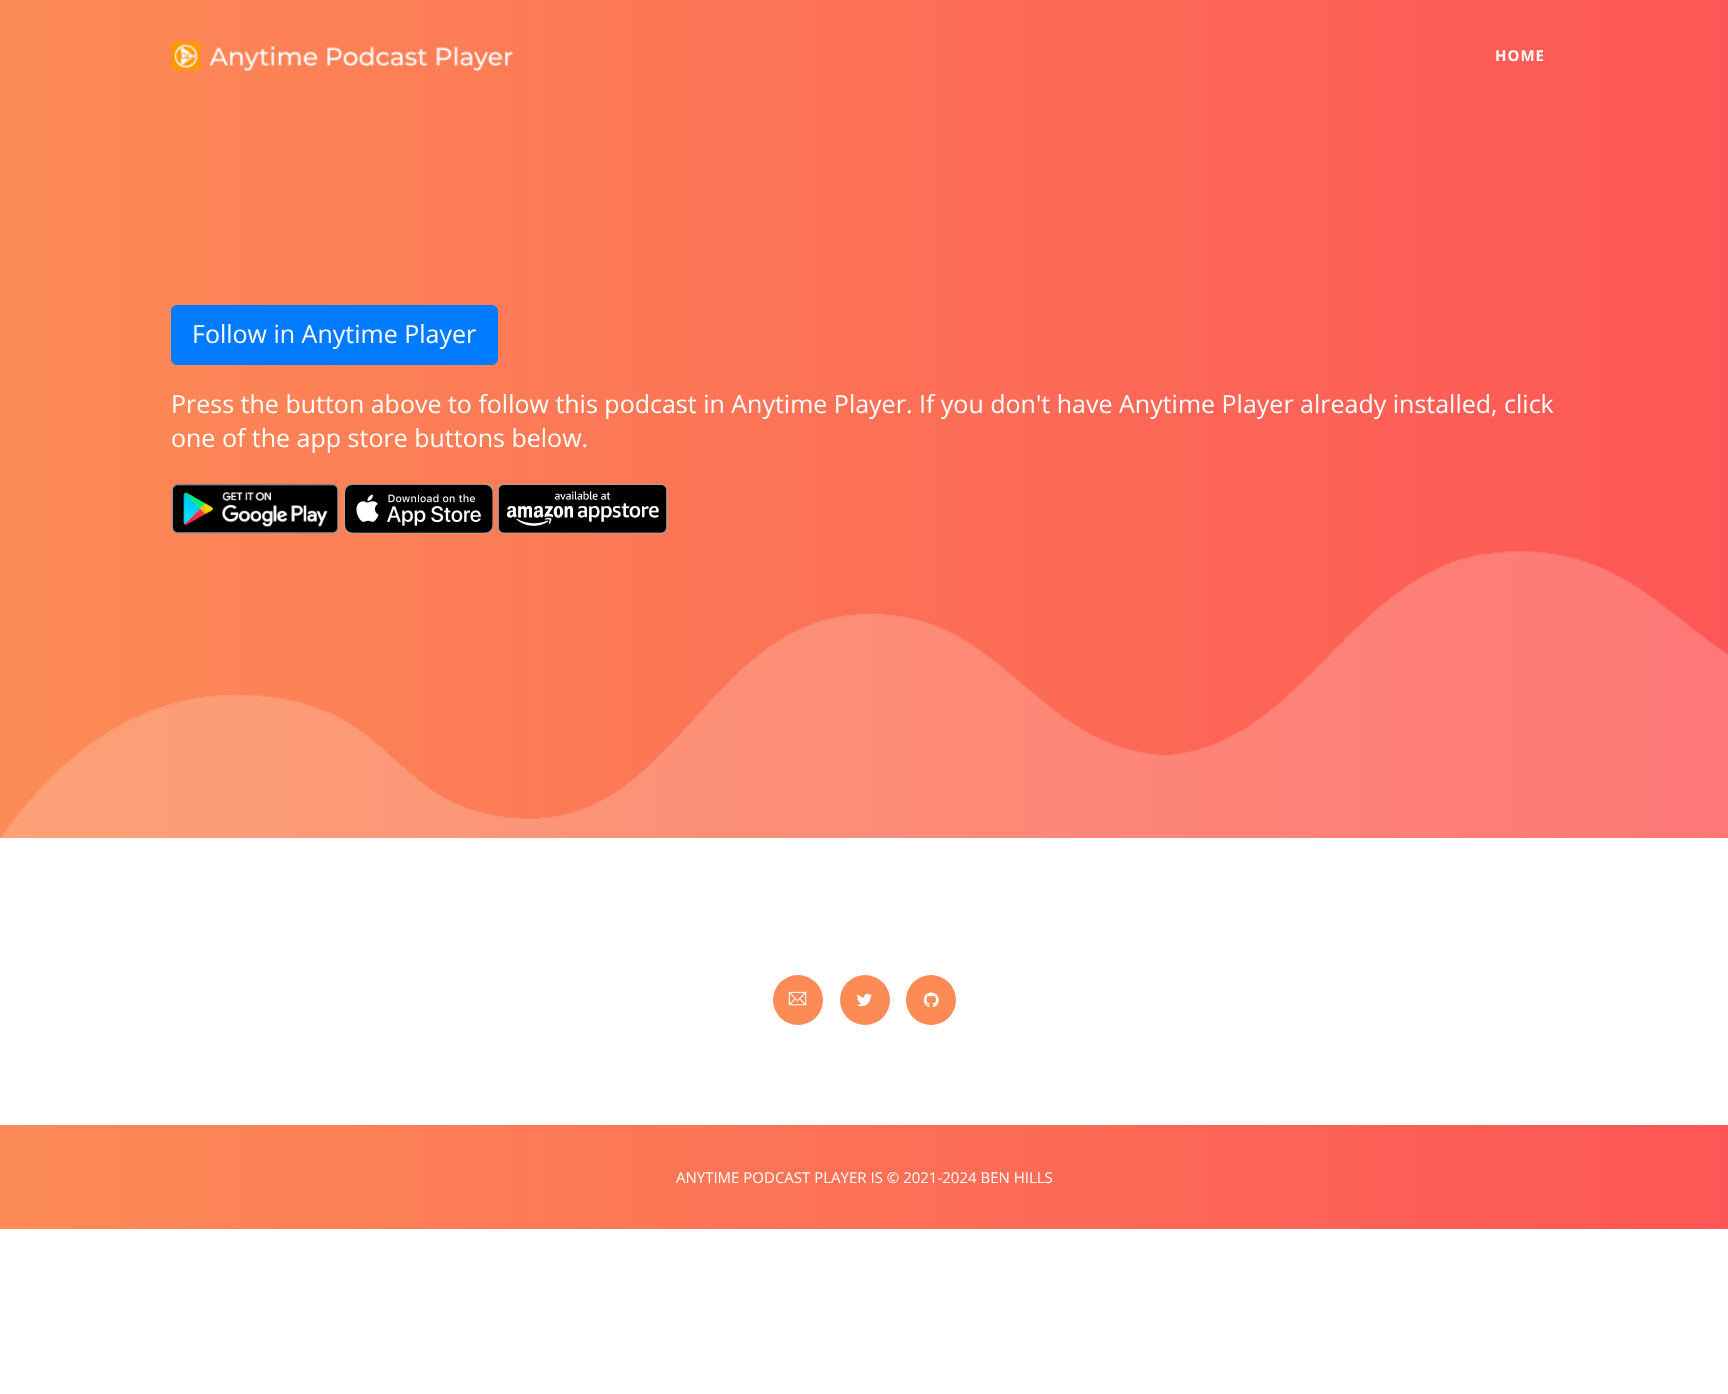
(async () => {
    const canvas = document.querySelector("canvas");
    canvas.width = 1728;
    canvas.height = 1394;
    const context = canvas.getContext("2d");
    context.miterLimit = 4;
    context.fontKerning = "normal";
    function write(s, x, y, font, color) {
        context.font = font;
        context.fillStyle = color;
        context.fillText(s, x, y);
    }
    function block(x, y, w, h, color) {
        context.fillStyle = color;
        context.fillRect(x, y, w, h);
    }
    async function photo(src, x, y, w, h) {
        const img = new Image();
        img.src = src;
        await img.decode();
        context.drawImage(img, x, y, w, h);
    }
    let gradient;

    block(0, 0, 1728, 1394, "rgb(255, 255, 255)");
    gradient = context.createLinearGradient(0, 419, 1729, 419);
    gradient.addColorStop(0, "rgb(252, 139, 86)");
    gradient.addColorStop(1, "rgb(253, 86, 86)");
    context.fillStyle = gradient;
    context.fillRect(0, 0, 1728, 838);
    await photo("media/1.png", 171, 41, 342, 31);
    context.letterSpacing = "1px";
    write("HOME", 1495, 61, "bold 15px Open Sans", "rgb(255, 255, 255)");
    context.fillStyle = "rgb(0, 123, 255)";
    context.beginPath();
    context.roundRect(171.5, 305.5, 326, 59, 5.5);
    context.fill();
    context.strokeStyle = "rgb(0, 123, 255)";
    context.stroke();
    context.letterSpacing = "0px";
    write("Follow in Anytime Player", 192, 343, "25px Open Sans", "rgb(255, 255, 255)");
    write("Press the button above to follow this podcast in Anytime Player. If you don't have Anytime Player already installed, click", 171, 413, "25px Open Sans", "rgb(255, 255, 255)");
    write("one of the app store buttons below.", 171, 447, "25px Open Sans", "rgb(255, 255, 255)");
    await photo("media/2.png", 171, 483, 168, 51);
    await photo("media/3.png", 344, 484, 149, 50);
    await photo("media/4.png", 497, 483, 171, 51);
    await photo("media/5.png", 0, 551, 1728, 287);
    context.fillStyle = "rgb(252, 139, 86)";
    context.beginPath();
    context.arc(798, 1000, 25, 0, Math.PI * 2);
    context.fill();
    await photo("media/6.png", 788, 991, 19, 15);
    context.beginPath();
    context.arc(865, 1000, 25, 0, Math.PI * 2);
    context.fill();
    await photo("media/7.png", 857, 993, 15, 14);
    context.beginPath();
    context.arc(931, 1000, 25, 0, Math.PI * 2);
    context.fill();
    await photo("media/8.png", 923, 992, 16, 16);
    gradient = context.createLinearGradient(0, 1177, 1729, 1177);
    gradient.addColorStop(0, "rgb(252, 139, 86)");
    gradient.addColorStop(1, "rgb(253, 86, 86)");
    context.fillStyle = gradient;
    context.fillRect(0, 1125, 1728, 104);
    write("ANYTIME PODCAST PLAYER IS © 2021-2024 BEN HILLS", 676, 1183, "15px Open Sans", "rgb(255, 255, 255)");
})();
